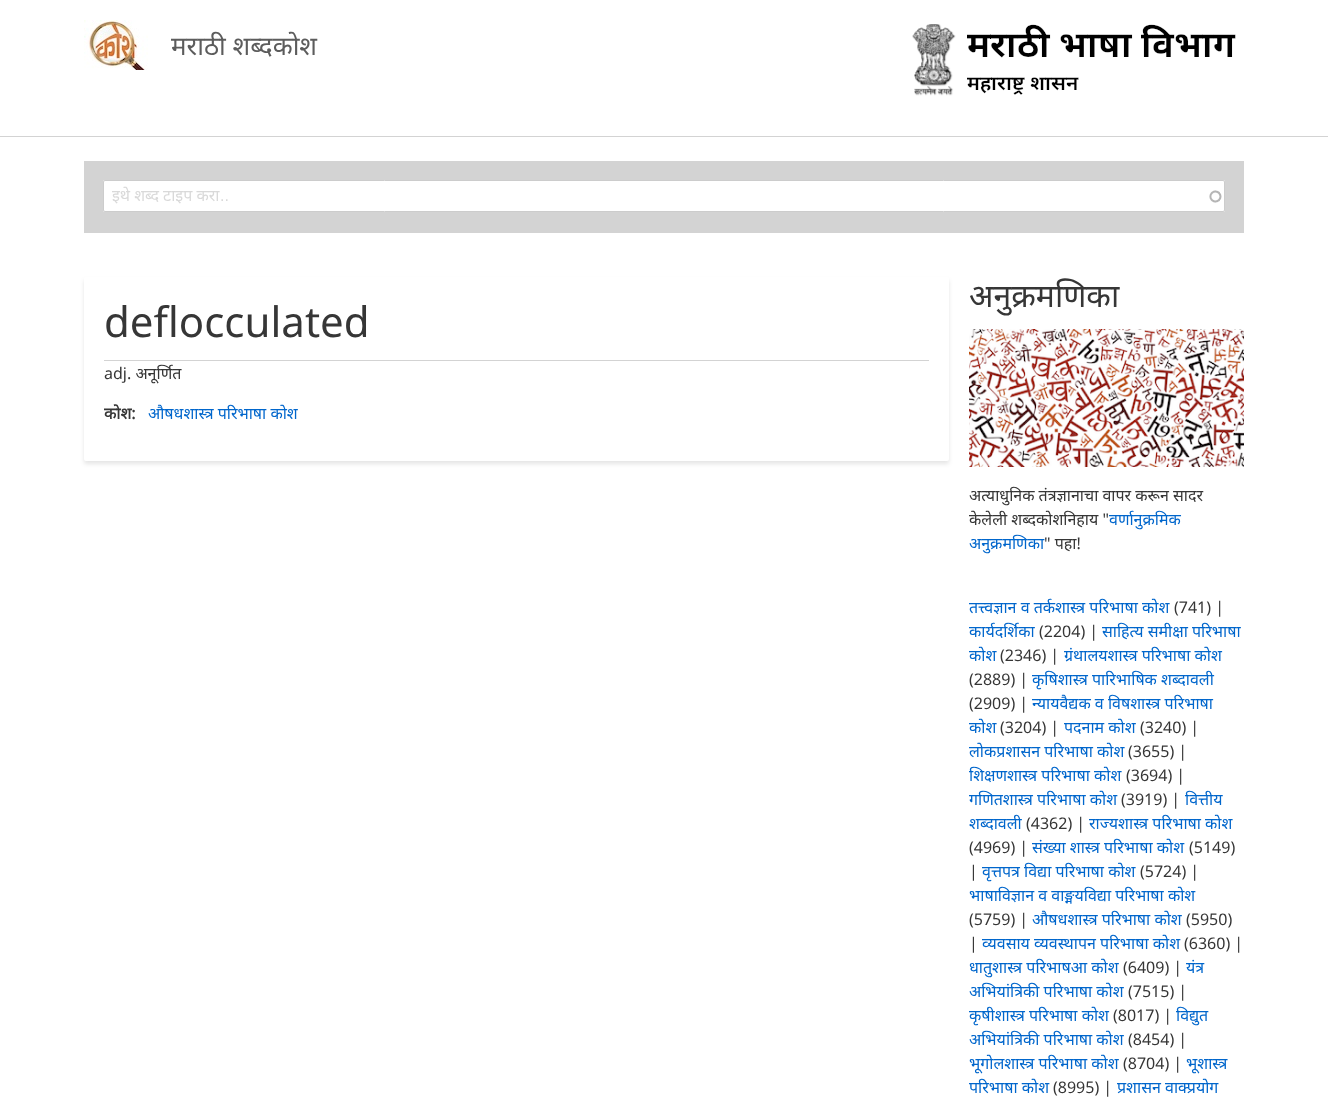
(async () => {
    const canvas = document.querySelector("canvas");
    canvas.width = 1328;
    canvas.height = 1103;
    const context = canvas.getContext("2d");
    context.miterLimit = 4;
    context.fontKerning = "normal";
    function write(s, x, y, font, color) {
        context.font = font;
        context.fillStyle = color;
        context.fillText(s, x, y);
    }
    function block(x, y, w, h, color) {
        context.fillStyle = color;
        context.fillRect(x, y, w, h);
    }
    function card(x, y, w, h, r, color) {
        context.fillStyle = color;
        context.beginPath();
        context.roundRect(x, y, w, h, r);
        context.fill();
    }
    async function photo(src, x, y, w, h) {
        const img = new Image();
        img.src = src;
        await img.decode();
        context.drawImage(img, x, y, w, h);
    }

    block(0, 0, 1328, 1103, "rgb(255, 255, 255)");
    block(0, 136, 1328, 1, "rgb(211, 211, 211)");
    await photo("media/1.png", 84, 20, 64, 50);
    write("मराठी शब्दकोश", 171, 55, "26px Noto Sans", "rgb(92, 92, 92)");
    await photo("media/2.png", 912, 24, 324, 72);
    block(84, 161, 1160, 72, "rgb(211, 211, 211)");
    card(103, 180, 1122, 32, 2, "rgb(255, 255, 255)");
    await photo("media/3.png", 1209, 190, 13, 13);
    context.beginPath();
    context.roundRect(103.5, 180.5, 1121, 31, 1.5);
    context.strokeStyle = "rgb(204, 204, 204)";
    context.stroke();
    write("इथे शब्द टाइप करा", 112, 201, "16px 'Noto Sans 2'", "rgb(217, 217, 217)");
    write("..", 220, 201, "16px Liberation Sans", "rgb(217, 217, 217)");
    context.fillStyle = "rgba(0, 0, 0, 0.1)";
    context.filter = "blur(2px)";
    context.beginPath();
    context.roundRect(84, 280, 865, 184, 2);
    context.fill();
    context.filter = "none";
    card(84, 277, 865, 184, 2, "rgb(255, 255, 255)");
    block(104, 360, 825, 1, "rgb(211, 211, 211)");
    write("deflocculated", 104, 337, "42px Noto Sans", "rgb(54, 54, 54)");
    write("adj. अनूर्णित", 104, 379, "16px Noto Sans", "rgb(54, 54, 54)");
    write("कोश:", 104, 419, "bold 16px Noto Sans", "rgb(54, 54, 54)");
    write("औषधशास्त्र परिभाषा कोश", 148, 419, "16px Noto Sans", "rgb(0, 102, 204)");
    write("अनुक्रमणिका", 969, 307, "32px Noto Sans", "rgb(54, 54, 54)");
    await photo("media/4.png", 969, 329, 275, 138);
    write("अत्याधुनिक तंत्रज्ञानाचा वापर करून सादर", 969, 501, "16px Noto Sans", "rgb(54, 54, 54)");
    write("केलेली शब्दकोशनिहाय \"", 969, 525, "16px Noto Sans", "rgb(54, 54, 54)");
    write("वर्णानुक्रमिक", 1109, 525, "16px Noto Sans", "rgb(0, 102, 204)");
    write("अनुक्रमणिका", 969, 549, "16px Noto Sans", "rgb(0, 102, 204)");
    write("\" पहा!", 1044, 549, "16px Noto Sans", "rgb(54, 54, 54)");
    write("तत्त्वज्ञान व तर्कशास्त्र परिभाषा कोश", 969, 613, "16px Noto Sans", "rgb(0, 102, 204)");
    write("(741) |", 1174, 613, "16px Noto Sans", "rgb(54, 54, 54)");
    write("कार्यदर्शिका", 969, 637, "16px Noto Sans", "rgb(0, 102, 204)");
    write("(2204) |", 1039, 637, "16px Noto Sans", "rgb(54, 54, 54)");
    write("साहित्य समीक्षा परिभाषा", 1102, 637, "16px Noto Sans", "rgb(0, 102, 204)");
    write("कोश", 969, 661, "16px Noto Sans", "rgb(0, 102, 204)");
    write("(2346) |", 1000, 661, "16px Noto Sans", "rgb(54, 54, 54)");
    write("ग्रंथालयशास्त्र परिभाषा कोश", 1064, 661, "16px Noto Sans", "rgb(0, 102, 204)");
    write("(2889) |", 969, 685, "16px Noto Sans", "rgb(54, 54, 54)");
    write("कृषिशास्त्र पारिभाषिक शब्दावली", 1032, 685, "16px Noto Sans", "rgb(0, 102, 204)");
    write("(2909) |", 969, 709, "16px Noto Sans", "rgb(54, 54, 54)");
    write("न्यायवैद्यक व विषशास्त्र परिभाषा", 1032, 709, "16px Noto Sans", "rgb(0, 102, 204)");
    write("कोश", 969, 733, "16px Noto Sans", "rgb(0, 102, 204)");
    write("(3204) |", 1000, 733, "16px Noto Sans", "rgb(54, 54, 54)");
    write("पदनाम कोश", 1064, 733, "16px Noto Sans", "rgb(0, 102, 204)");
    write("(3240) |", 1140, 733, "16px Noto Sans", "rgb(54, 54, 54)");
    write("लोकप्रशासन परिभाषा कोश", 969, 757, "16px Noto Sans", "rgb(0, 102, 204)");
    write("(3655) |", 1128, 757, "16px Noto Sans", "rgb(54, 54, 54)");
    write("शिक्षणशास्त्र परिभाषा कोश", 969, 781, "16px Noto Sans", "rgb(0, 102, 204)");
    write("(3694) |", 1126, 781, "16px Noto Sans", "rgb(54, 54, 54)");
    write("गणितशास्त्र परिभाषा कोश", 969, 805, "16px Noto Sans", "rgb(0, 102, 204)");
    write("(3919) |", 1121, 805, "16px Noto Sans", "rgb(54, 54, 54)");
    write("वित्तीय", 1185, 805, "16px Noto Sans", "rgb(0, 102, 204)");
    write("शब्दावली", 969, 829, "16px Noto Sans", "rgb(0, 102, 204)");
    write("(4362) |", 1026, 829, "16px Noto Sans", "rgb(54, 54, 54)");
    write("राज्यशास्त्र परिभाषा कोश", 1089, 829, "16px Noto Sans", "rgb(0, 102, 204)");
    write("(4969) |", 969, 853, "16px Noto Sans", "rgb(54, 54, 54)");
    write("संख्या शास्त्र परिभाषा कोश", 1032, 853, "16px Noto Sans", "rgb(0, 102, 204)");
    write("(5149)", 1189, 853, "16px Noto Sans", "rgb(54, 54, 54)");
    write("|", 969, 877, "16px Noto Sans", "rgb(54, 54, 54)");
    write("वृत्तपत्र विद्या परिभाषा कोश", 982, 877, "16px Noto Sans", "rgb(0, 102, 204)");
    write("(5724) |", 1140, 877, "16px Noto Sans", "rgb(54, 54, 54)");
    write("भाषाविज्ञान व वाङ्मयविद्या परिभाषा कोश", 969, 901, "16px Noto Sans", "rgb(0, 102, 204)");
    write("(5759) |", 969, 925, "16px Noto Sans", "rgb(54, 54, 54)");
    write("औषधशास्त्र परिभाषा कोश", 1032, 925, "16px Noto Sans", "rgb(0, 102, 204)");
    write("(5950)", 1186, 925, "16px Noto Sans", "rgb(54, 54, 54)");
    write("|", 969, 949, "16px Noto Sans", "rgb(54, 54, 54)");
    write("व्यवसाय व्यवस्थापन परिभाषा कोश", 982, 949, "16px Noto Sans", "rgb(0, 102, 204)");
    write("(6360) |", 1184, 949, "16px Noto Sans", "rgb(54, 54, 54)");
    write("धातुशास्त्र परिभाषआ कोश", 969, 973, "16px Noto Sans", "rgb(0, 102, 204)");
    write("(6409) |", 1123, 973, "16px Noto Sans", "rgb(54, 54, 54)");
    write("यंत्र", 1186, 973, "16px Noto Sans", "rgb(0, 102, 204)");
    write("अभियांत्रिकी परिभाषा कोश", 969, 997, "16px Noto Sans", "rgb(0, 102, 204)");
    write("(7515) |", 1128, 997, "16px Noto Sans", "rgb(54, 54, 54)");
    write("कृषीशास्त्र परिभाषा कोश", 969, 1021, "16px Noto Sans", "rgb(0, 102, 204)");
    write("(8017) |", 1113, 1021, "16px Noto Sans", "rgb(54, 54, 54)");
    write("विद्युत", 1176, 1021, "16px Noto Sans", "rgb(0, 102, 204)");
    write("अभियांत्रिकी परिभाषा कोश", 969, 1045, "16px Noto Sans", "rgb(0, 102, 204)");
    write("(8454) |", 1128, 1045, "16px Noto Sans", "rgb(54, 54, 54)");
    write("भूगोलशास्त्र परिभाषा कोश", 969, 1069, "16px Noto Sans", "rgb(0, 102, 204)");
    write("(8704) |", 1123, 1069, "16px Noto Sans", "rgb(54, 54, 54)");
    write("भूशास्त्र", 1186, 1069, "16px Noto Sans", "rgb(0, 102, 204)");
    write("परिभाषा कोश", 969, 1093, "16px Noto Sans", "rgb(0, 102, 204)");
    write("(8995) |", 1053, 1093, "16px Noto Sans", "rgb(54, 54, 54)");
    write("प्रशासन वाक्प्रयोग", 1117, 1093, "16px Noto Sans", "rgb(0, 102, 204)");
})();
